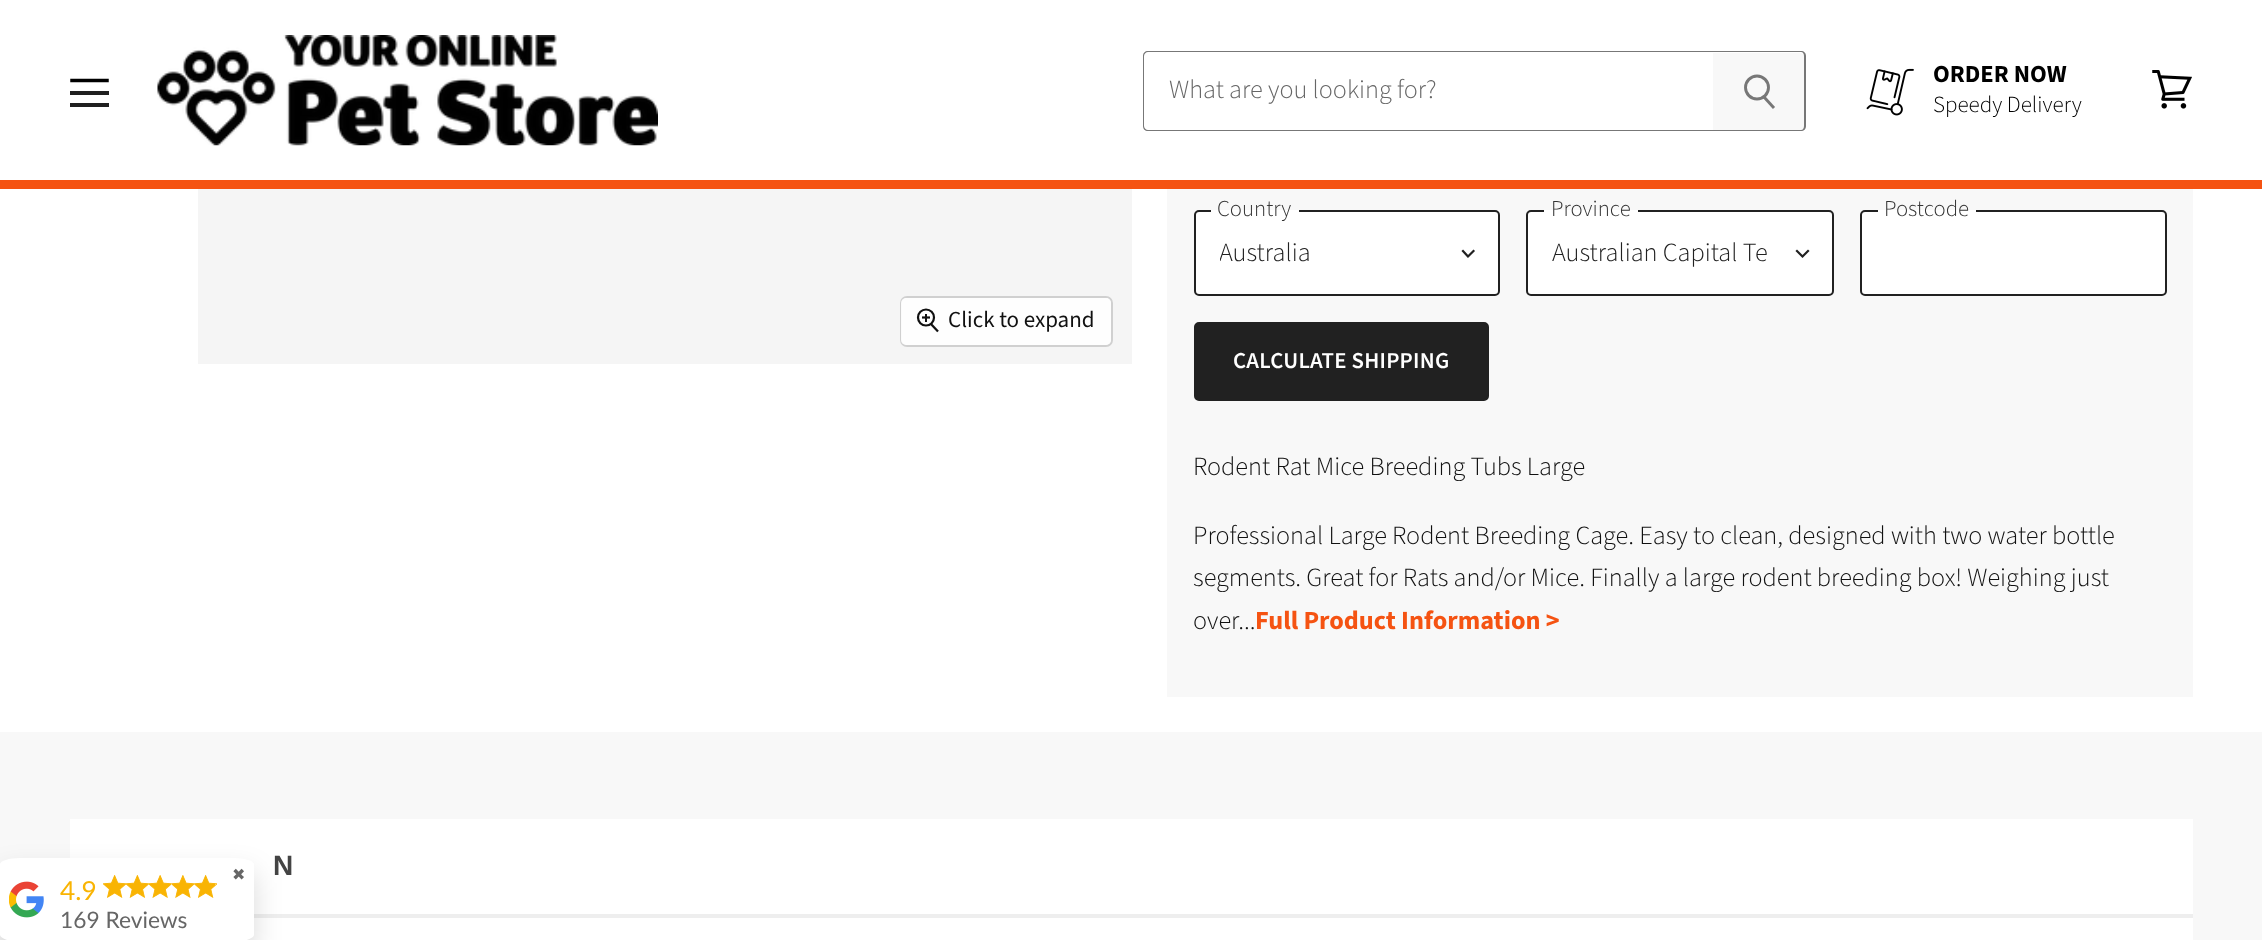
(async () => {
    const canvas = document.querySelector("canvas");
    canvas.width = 2262;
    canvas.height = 940;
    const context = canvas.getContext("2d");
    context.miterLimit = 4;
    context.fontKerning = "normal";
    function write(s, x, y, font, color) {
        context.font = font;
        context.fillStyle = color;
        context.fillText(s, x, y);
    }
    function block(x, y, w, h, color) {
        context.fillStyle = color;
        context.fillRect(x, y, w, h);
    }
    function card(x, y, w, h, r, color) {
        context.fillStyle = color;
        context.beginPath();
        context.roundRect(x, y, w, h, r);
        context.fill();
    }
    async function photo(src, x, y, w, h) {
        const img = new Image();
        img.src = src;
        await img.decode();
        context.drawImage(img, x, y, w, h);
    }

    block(0, 0, 2262, 940, "rgb(255, 255, 255)");
    block(0, 180, 2262, 9, "rgb(245, 83, 18)");
    context.beginPath();
    context.moveTo(107, 80.5);
    context.lineTo(72, 80.5);
    context.strokeStyle = "rgb(0, 0, 0)";
    context.lineWidth = 3.5;
    context.lineCap = "square";
    context.lineJoin = "round";
    context.stroke();
    block(70, 91, 39, 4, "rgb(32, 32, 32)");
    block(70, 103, 39, 4, "rgb(32, 32, 32)");
    await photo("media/1.png", 157, 35, 501, 111);
    context.fillStyle = "rgb(119, 119, 119)";
    context.beginPath();
    context.moveTo(1148, 51);
    context.lineTo(1713, 51);
    context.lineTo(1713, 131);
    context.lineTo(1148, 131);
    context.bezierCurveTo(1145, 131, 1143, 129, 1143, 126);
    context.lineTo(1143, 56);
    context.bezierCurveTo(1143, 53, 1145, 51, 1148, 51);
    context.closePath();
    context.moveTo(1148, 52);
    context.lineTo(1713, 52);
    context.lineTo(1713, 130);
    context.lineTo(1148, 130);
    context.bezierCurveTo(1146, 130, 1144, 128, 1144, 126);
    context.lineTo(1144, 56);
    context.bezierCurveTo(1144, 54, 1146, 52, 1148, 52);
    context.closePath();
    context.fill("evenodd");
    write("What are you looking for?", 1169, 98, "300 26.25px Source Sans Pro", "rgb(102, 102, 102)");
    context.fillStyle = "rgb(248, 248, 248)";
    context.beginPath();
    context.roundRect(1713, 53, 91, 77, [0, 4, 4, 0]);
    context.fill();
    context.fillStyle = "rgb(119, 119, 119)";
    context.beginPath();
    context.moveTo(1713, 51);
    context.lineTo(1801, 51);
    context.bezierCurveTo(1804, 51, 1806, 53, 1806, 56);
    context.lineTo(1806, 126);
    context.bezierCurveTo(1806, 129, 1804, 131, 1801, 131);
    context.lineTo(1713, 131);
    context.closePath();
    context.moveTo(1713, 52);
    context.lineTo(1801, 52);
    context.bezierCurveTo(1803, 52, 1804, 54, 1804, 56);
    context.lineTo(1804, 126);
    context.bezierCurveTo(1804, 128, 1803, 130, 1801, 130);
    context.lineTo(1713, 130);
    context.closePath();
    context.fill("evenodd");
    context.beginPath();
    context.moveTo(1774, 108);
    context.lineTo(1764, 97);
    context.strokeStyle = "rgb(119, 119, 119)";
    context.lineWidth = 2.9;
    context.lineCap = "butt";
    context.lineJoin = "miter";
    context.stroke();
    context.beginPath();
    context.arc(1757, 87.5, 11.5, 0, Math.PI * 2);
    context.stroke();
    await photo("media/2.png", 1866, 68, 48, 48);
    write("ORDER NOW", 1933, 82, "bold 24.5px Source Sans Pro", "rgb(0, 0, 0)");
    write("Speedy Delivery", 1933, 112, "300 23px Source Sans Pro", "rgb(0, 0, 0)");
    await photo("media/3.png", 2152, 70, 40, 39);
    block(198, 189, 934, 175, "rgb(245, 245, 245)");
    context.beginPath();
    context.roundRect(901, 297, 211, 49, 6);
    context.strokeStyle = "rgb(208, 208, 208)";
    context.lineWidth = 2;
    context.stroke();
    card(901, 298, 210, 47, 5, "rgba(255, 255, 255, 0.9)");
    context.beginPath();
    context.moveTo(930.5, 323.5);
    context.lineTo(938, 331.5);
    context.strokeStyle = "rgb(17, 17, 17)";
    context.lineWidth = 2.2;
    context.stroke();
    context.beginPath();
    context.arc(926, 317.5, 8, 0, Math.PI * 2);
    context.stroke();
    block(925, 314, 2, 8, "rgb(17, 17, 17)");
    context.beginPath();
    context.moveTo(922, 317.5);
    context.lineTo(930, 317.5);
    context.lineJoin = "round";
    context.stroke();
    write("Click to expand", 948, 327, "23px Source Sans Pro", "rgb(17, 17, 17)");
    block(1167, 189, 1026, 508, "rgb(248, 248, 248)");
    context.fillStyle = "rgb(255, 255, 255)";
    context.beginPath();
    context.roundRect(1195, 211, 304, 84, 4);
    context.fill();
    context.strokeStyle = "rgb(33, 33, 33)";
    context.lineWidth = 2;
    context.lineJoin = "miter";
    context.stroke();
    block(1211, 210, 88, 2, "rgb(255, 255, 255)");
    write("Country", 1217, 216, "300 22.75px Source Sans Pro", "rgb(51, 51, 51)");
    context.save();
    context.beginPath();
    context.rect(1220, 238, 215, 30);
    context.clip();
    write("Australia", 1219, 261, "300 26.25px Source Sans Pro", "rgb(33, 33, 33)");
    context.restore();
    context.beginPath();
    context.moveTo(1468, 256.5);
    context.lineTo(1473.5, 251);
    context.moveTo(1468, 256.5);
    context.lineTo(1463, 251);
    context.lineWidth = 2.2;
    context.lineCap = "square";
    context.stroke();
    context.fillStyle = "rgb(255, 255, 255)";
    context.beginPath();
    context.roundRect(1527, 211, 306, 84, 4);
    context.fill();
    context.lineWidth = 2;
    context.stroke();
    block(1544, 210, 94, 2, "rgb(255, 255, 255)");
    write("Province", 1551, 216, "300 22.75px Source Sans Pro", "rgb(51, 51, 51)");
    write("Australian Capital Te", 1552, 261, "300 26.25px Source Sans Pro", "rgb(33, 33, 33)");
    context.beginPath();
    context.moveTo(1802.5, 256.5);
    context.lineTo(1808, 251);
    context.moveTo(1802.5, 256.5);
    context.lineTo(1797, 251);
    context.lineWidth = 2.2;
    context.stroke();
    context.fillStyle = "rgb(255, 255, 255)";
    context.beginPath();
    context.roundRect(1861, 211, 305, 84, 4);
    context.fill();
    context.lineWidth = 2;
    context.stroke();
    block(1878, 210, 98, 2, "rgb(255, 255, 255)");
    write("Postcode", 1884, 216, "300 22.75px Source Sans Pro", "rgb(51, 51, 51)");
    context.fillStyle = "rgb(33, 33, 33)";
    context.beginPath();
    context.roundRect(1195, 323, 293, 77, 4);
    context.fill();
    context.stroke();
    context.letterSpacing = "0.25px";
    write("CALCULATE SHIPPING", 1233, 368, "600 22.75px Source Sans Pro", "rgb(255, 255, 255)");
    context.letterSpacing = "0px";
    write("Rodent Rat Mice Breeding Tubs Large", 1193, 475, "300 26.25px Source Sans Pro", "rgb(17, 17, 17)");
    write("Professional Large Rodent Breeding Cage. Easy to clean, designed with two water bottle", 1193, 544, "300 26.25px Source Sans Pro", "rgb(17, 17, 17)");
    write("segments. Great for Rats and/or Mice. Finally a large rodent breeding box! Weighing just", 1193, 586, "300 26.25px Source Sans Pro", "rgb(17, 17, 17)");
    write("over...", 1193, 629, "300 26.25px Source Sans Pro", "rgb(17, 17, 17)");
    write("Full Product Information >", 1255, 629, "bold 26.25px Source Sans Pro", "rgb(245, 83, 18)");
    block(0, 732, 2262, 208, "rgb(248, 248, 248)");
    block(70, 819, 2123, 95, "rgb(255, 255, 255)");
    write("N", 273, 875, "bold 28px Liberation Sans", "rgb(68, 68, 68)");
    block(246, 918, 1947, 22, "rgb(255, 255, 255)");
    block(254, 914, 1939, 4, "rgb(238, 238, 238)");
    context.fillStyle = "rgba(0, 0, 0, 0.15)";
    context.filter = "blur(14px)";
    context.beginPath();
    context.roundRect(0, 872, 254, 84, 7);
    context.fill();
    context.filter = "none";
    context.fillStyle = "rgb(255, 255, 255)";
    context.beginPath();
    context.moveTo(20, 858);
    context.lineTo(233, 858);
    context.bezierCurveTo(245, 858, 254, 861, 254, 864);
    context.lineTo(254, 935);
    context.bezierCurveTo(254, 938, 245, 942, 233, 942);
    context.lineTo(20, 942);
    context.bezierCurveTo(9, 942, 0, 938, 0, 935);
    context.lineTo(0, 864);
    context.bezierCurveTo(0, 861, 9, 858, 20, 858);
    context.closePath();
    context.fill();
    write("✖", 232, 880, "16px DejaVu Sans", "rgb(102, 102, 102)");
    await photo("media/4.png", 9, 881, 35, 37);
    write("4.9", 60, 900, "26.25px Lato", "rgb(249, 180, 3)");
    await photo("media/5.png", 103, 875, 23, 23);
    await photo("media/6.png", 126, 875, 23, 23);
    await photo("media/7.png", 149, 875, 23, 23);
    await photo("media/8.png", 172, 875, 22, 23);
    await photo("media/9.png", 194, 875, 23, 23);
    write("169 Reviews", 60, 928, "22.75px Lato", "rgb(102, 102, 102)");
})();
